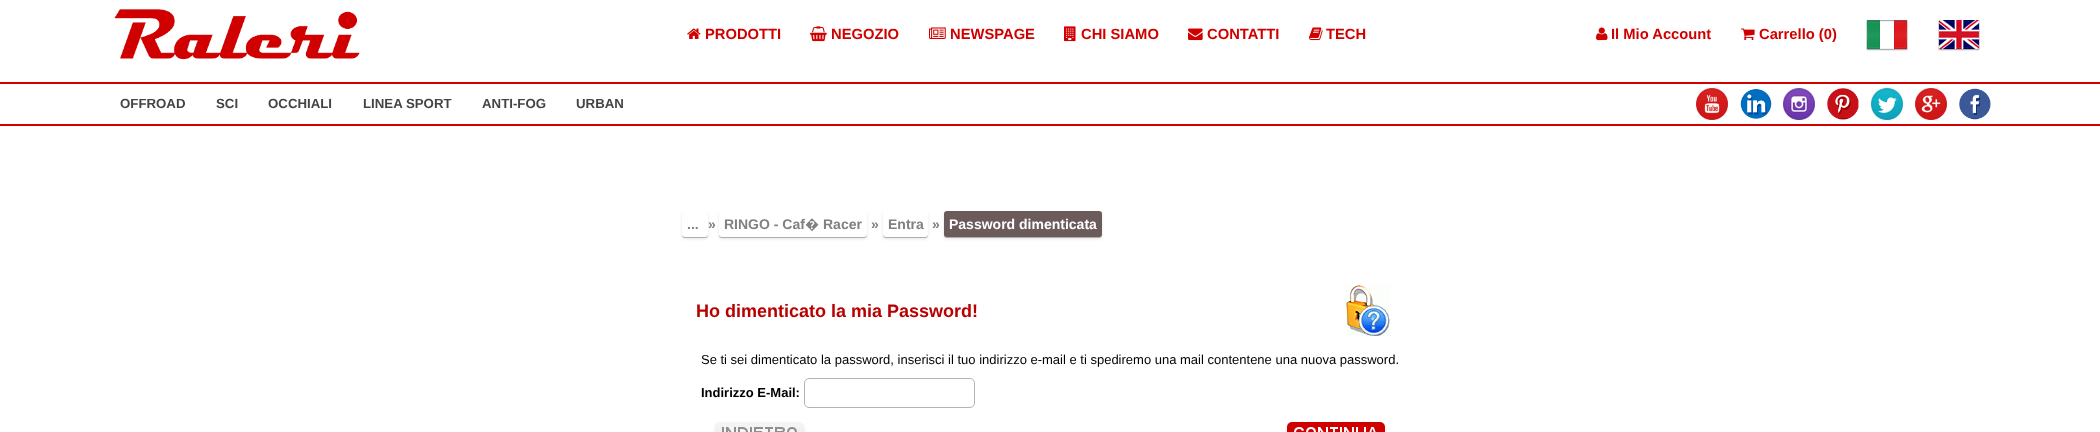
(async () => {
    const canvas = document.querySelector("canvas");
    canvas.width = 2100;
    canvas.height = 432;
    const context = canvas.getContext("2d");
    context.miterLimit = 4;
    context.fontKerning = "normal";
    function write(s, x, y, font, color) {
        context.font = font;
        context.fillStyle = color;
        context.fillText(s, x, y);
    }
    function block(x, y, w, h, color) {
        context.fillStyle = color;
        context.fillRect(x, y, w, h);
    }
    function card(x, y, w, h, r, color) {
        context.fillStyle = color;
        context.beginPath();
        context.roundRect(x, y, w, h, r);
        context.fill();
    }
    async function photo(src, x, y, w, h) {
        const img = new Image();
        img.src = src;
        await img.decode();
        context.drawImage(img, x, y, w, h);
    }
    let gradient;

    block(0, 0, 2100, 432, "rgb(255, 255, 255)");
    await photo("media/1.png", 114, 9, 246, 51);
    await photo("media/2.png", 687, 28, 14, 11);
    write("PRODOTTI", 705, 39, "bold 14.75px Liberation Sans", "rgb(209, 0, 0)");
    await photo("media/3.png", 810, 26, 17, 16);
    write("NEGOZIO", 831, 39, "bold 14.75px Liberation Sans", "rgb(209, 0, 0)");
    await photo("media/4.png", 929, 27, 17, 12);
    write("NEWSPAGE", 950, 39, "bold 14.75px Liberation Sans", "rgb(209, 0, 0)");
    await photo("media/5.png", 1064, 26, 12, 16);
    write("CHI SIAMO", 1081, 39, "bold 14.75px Liberation Sans", "rgb(209, 0, 0)");
    await photo("media/6.png", 1188, 28, 15, 13);
    write("CONTATTI", 1207, 39, "bold 14.75px Liberation Sans", "rgb(209, 0, 0)");
    await photo("media/7.png", 1309, 27, 14, 14);
    write("TECH", 1326, 39, "bold 14.75px Liberation Sans", "rgb(209, 0, 0)");
    await photo("media/8.png", 1596, 27, 12, 14);
    write("Il Mio Account", 1611, 39, "bold 14.75px Liberation Sans", "rgb(209, 0, 0)");
    await photo("media/9.png", 1741, 28, 14, 12);
    write("Carrello (0)", 1759, 39, "bold 14.75px Liberation Sans", "rgb(209, 0, 0)");
    await photo("media/10.png", 1866, 19, 42, 32);
    await photo("media/11.png", 1938, 20, 42, 31);
    block(0, 82, 2100, 2, "rgb(209, 0, 0)");
    block(0, 124, 2100, 2, "rgb(209, 0, 0)");
    write("OFFROAD", 120, 108, "bold 13.25px Liberation Sans", "rgb(68, 68, 68)");
    write("SCI", 216, 108, "bold 13.25px Liberation Sans", "rgb(68, 68, 68)");
    write("OCCHIALI", 268, 108, "bold 13.25px Liberation Sans", "rgb(68, 68, 68)");
    write("LINEA SPORT", 363, 108, "bold 13.25px Liberation Sans", "rgb(68, 68, 68)");
    write("ANTI-FOG", 482, 108, "bold 13.25px Liberation Sans", "rgb(68, 68, 68)");
    write("URBAN", 576, 108, "bold 13.25px Liberation Sans", "rgb(68, 68, 68)");
    await photo("media/12.png", 1696, 88, 32, 32);
    await photo("media/13.png", 1740, 89, 32, 30);
    await photo("media/14.png", 1783, 88, 32, 32);
    await photo("media/15.png", 1827, 88, 32, 32);
    await photo("media/16.png", 1871, 88, 32, 32);
    await photo("media/17.png", 1915, 88, 32, 32);
    await photo("media/18.png", 1959, 88, 32, 32);
    context.fillStyle = "rgba(0, 0, 0, 0.1)";
    context.filter = "blur(1.5px)";
    context.beginPath();
    context.roundRect(682, 213, 26, 26, 3);
    context.fill();
    context.filter = "none";
    context.fillStyle = "rgba(0, 0, 0, 0.25)";
    context.filter = "blur(0.5px)";
    context.beginPath();
    context.roundRect(682, 212, 26, 26, 3);
    context.fill();
    context.filter = "none";
    card(682, 211, 26, 26, 3, "rgb(255, 255, 255)");
    write("...", 687, 229, "bold 14px Liberation Sans", "rgb(128, 128, 128)");
    write("»", 708, 229, "bold 14px Liberation Sans", "rgb(128, 128, 128)");
    context.fillStyle = "rgba(0, 0, 0, 0.1)";
    context.filter = "blur(1.5px)";
    context.beginPath();
    context.roundRect(719, 213, 148, 26, 3);
    context.fill();
    context.filter = "none";
    context.fillStyle = "rgba(0, 0, 0, 0.25)";
    context.filter = "blur(0.5px)";
    context.beginPath();
    context.roundRect(719, 212, 148, 26, 3);
    context.fill();
    context.filter = "none";
    card(719, 211, 148, 26, 3, "rgb(255, 255, 255)");
    write("RINGO - Caf", 724, 229, "bold 14px Liberation Sans", "rgb(128, 128, 128)");
    write("�", 805, 229, "bold 14px Noto Sans", "rgb(128, 128, 128)");
    write("Racer", 823, 229, "bold 14px Liberation Sans", "rgb(128, 128, 128)");
    write("»", 871, 229, "bold 14px Liberation Sans", "rgb(128, 128, 128)");
    context.fillStyle = "rgba(0, 0, 0, 0.1)";
    context.filter = "blur(1.5px)";
    context.beginPath();
    context.roundRect(883, 213, 45, 26, 3);
    context.fill();
    context.filter = "none";
    context.fillStyle = "rgba(0, 0, 0, 0.25)";
    context.filter = "blur(0.5px)";
    context.beginPath();
    context.roundRect(883, 212, 45, 26, 3);
    context.fill();
    context.filter = "none";
    card(883, 211, 45, 26, 3, "rgb(255, 255, 255)");
    write("Entra", 888, 229, "bold 14px Liberation Sans", "rgb(128, 128, 128)");
    write("»", 932, 229, "bold 14px Liberation Sans", "rgb(128, 128, 128)");
    context.fillStyle = "rgba(0, 0, 0, 0.1)";
    context.filter = "blur(1.5px)";
    context.beginPath();
    context.roundRect(944, 213, 158, 26, 3);
    context.fill();
    context.filter = "none";
    context.fillStyle = "rgba(0, 0, 0, 0.25)";
    context.filter = "blur(0.5px)";
    context.beginPath();
    context.roundRect(944, 212, 158, 26, 3);
    context.fill();
    context.filter = "none";
    card(944, 211, 158, 26, 3, "rgb(107, 91, 91)");
    write("Password dimenticata", 949, 229, "bold 14px Liberation Sans", "rgb(255, 255, 255)");
    write("Ho dimenticato la mia Password!", 696, 317, "bold 18px Liberation Sans", "rgb(184, 0, 0)");
    await photo("media/19.png", 1346, 285, 44, 51);
    write("Se ti sei dimenticato la password, inserisci il tuo indirizzo e-mail e ti spediremo una mail contentene una nuova password.", 701, 364, "13px Liberation Sans", "rgb(0, 0, 0)");
    write("Indirizzo E-Mail:", 701, 397, "bold 13px Liberation Sans", "rgb(0, 0, 0)");
    context.beginPath();
    context.roundRect(804.5, 378.5, 170, 29, 4.5);
    context.strokeStyle = "rgb(179, 179, 179)";
    context.stroke();
    context.fillStyle = "rgba(0, 0, 0, 0.1)";
    context.filter = "blur(1.5px)";
    context.beginPath();
    context.roundRect(715, 424, 89, 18, 5);
    context.fill();
    context.filter = "none";
    context.fillStyle = "rgba(0, 0, 0, 0.25)";
    context.filter = "blur(0.5px)";
    context.beginPath();
    context.roundRect(715, 423, 89, 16, 5);
    context.fill();
    context.filter = "none";
    gradient = context.createLinearGradient(760, 422, 760, 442);
    gradient.addColorStop(0, "rgb(246, 246, 246)");
    gradient.addColorStop(1, "rgb(234, 234, 234)");
    context.fillStyle = gradient;
    context.beginPath();
    context.roundRect(715, 422, 89, 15, 5);
    context.fill();
    await photo("media/20.png", 722, 427, 75, 5);
    context.fillStyle = "rgba(0, 0, 0, 0.1)";
    context.filter = "blur(1.5px)";
    context.beginPath();
    context.roundRect(1287, 424, 98, 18, 5);
    context.fill();
    context.filter = "none";
    context.fillStyle = "rgba(0, 0, 0, 0.25)";
    context.filter = "blur(0.5px)";
    context.beginPath();
    context.roundRect(1287, 423, 98, 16, 5);
    context.fill();
    context.filter = "none";
    card(1287, 422, 98, 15, 5, "rgb(209, 0, 0)");
    await photo("media/21.png", 1294, 427, 82, 5);
})();
